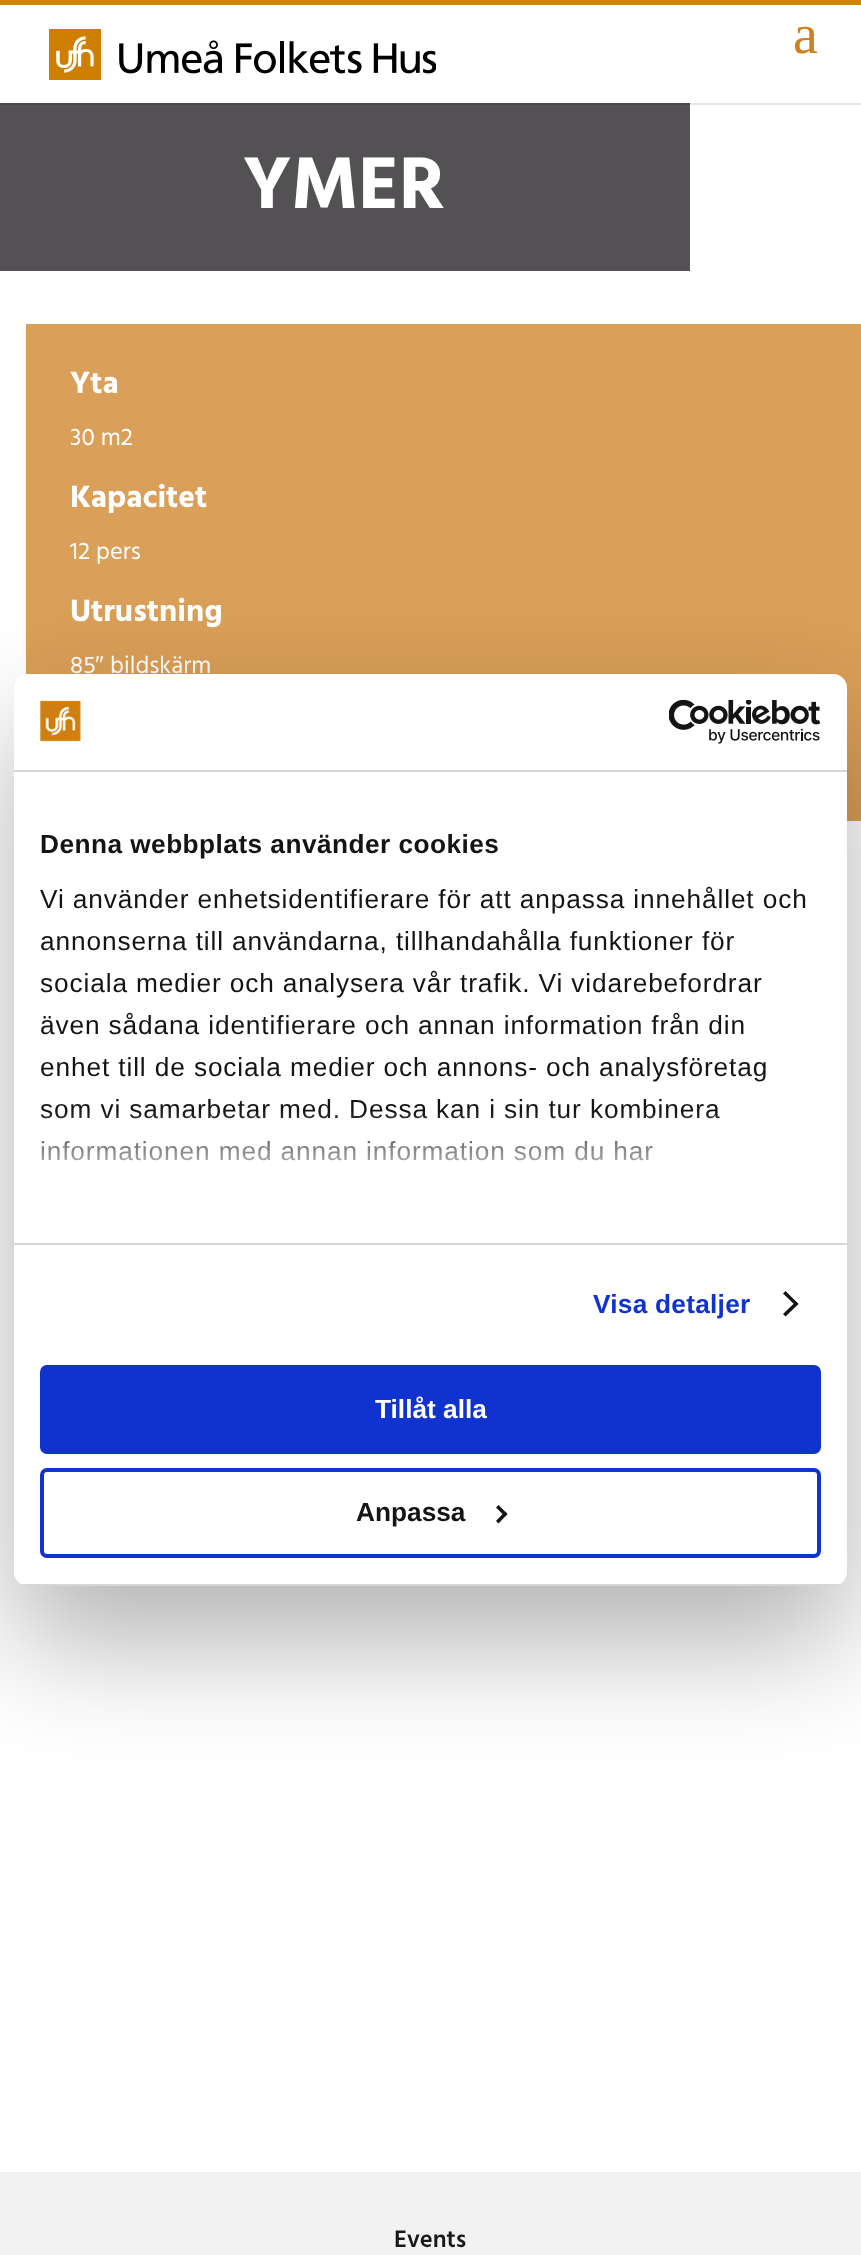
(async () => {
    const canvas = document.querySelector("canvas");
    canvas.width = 861;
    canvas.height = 2255;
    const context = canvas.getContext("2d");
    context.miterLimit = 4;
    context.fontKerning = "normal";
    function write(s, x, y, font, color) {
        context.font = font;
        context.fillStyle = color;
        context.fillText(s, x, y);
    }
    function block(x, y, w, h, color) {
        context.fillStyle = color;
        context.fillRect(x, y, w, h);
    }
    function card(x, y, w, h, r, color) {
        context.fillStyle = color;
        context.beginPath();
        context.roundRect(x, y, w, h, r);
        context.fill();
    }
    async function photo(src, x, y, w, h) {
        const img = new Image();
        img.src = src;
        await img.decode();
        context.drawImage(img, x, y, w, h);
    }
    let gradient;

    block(0, 0, 861, 2255, "rgb(255, 255, 255)");
    block(690, 103, 171, 2, "rgb(230, 230, 230)");
    block(0, 0, 861, 5, "rgb(206, 127, 32)");
    await photo("media/1.png", 49, 29, 387, 51);
    write("a", 793, 53, "56px Liberation Serif", "rgb(206, 127, 32)");
    block(0, 105, 690, 166, "rgb(83, 81, 84)");
    block(0, 103, 690, 2, "rgb(75, 73, 76)");
    write("YMER", 243, 208, "bold 75px Hind", "rgb(255, 255, 255)");
    block(26, 324, 835, 404, "rgb(218, 159, 88)");
    write("Yta", 70, 393, "bold 31.5px Hind", "rgb(255, 255, 255)");
    write("30 m2", 70, 445, "24.5px Hind", "rgb(255, 255, 255)");
    write("Kapacitet", 70, 507, "bold 31.5px Hind", "rgb(255, 255, 255)");
    write("12 pers", 70, 559, "24.5px Hind", "rgb(255, 255, 255)");
    write("Utrustning", 70, 621, "bold 31.5px Hind", "rgb(255, 255, 255)");
    write("85", 70, 673, "24.5px Hind", "rgb(255, 255, 255)");
    write("″", 95, 673, "24.5px Liberation Sans", "rgb(255, 255, 255)");
    write("bildskärm", 110, 673, "24.5px Hind", "rgb(255, 255, 255)");
    block(847, 728, 14, 93, "rgb(218, 159, 88)");
    block(0, 2172, 861, 83, "rgb(242, 242, 242)");
    write("Events", 394, 2247, "600 24.5px Hind", "rgb(26, 23, 27)");
    context.fillStyle = "rgba(0, 0, 0, 0.3)";
    context.filter = "blur(59.5px)";
    context.beginPath();
    context.roundRect(14, 730, 833, 912, 14);
    context.fill();
    context.filter = "none";
    card(14, 674, 833, 912, 14, "rgb(255, 255, 255)");
    block(14, 770, 833, 2, "rgb(214, 214, 214)");
    await photo("media/2.png", 40, 700, 41, 42);
    await photo("media/3.png", 669, 700, 152, 44);
    block(14, 1243, 833, 2, "rgb(214, 214, 214)");
    context.letterSpacing = "0.45px";
    write("Denna webbplats använder cookies", 40, 853, "bold 26.25px Liberation Sans", "rgb(20, 20, 20)");
    context.letterSpacing = "0.88px";
    write("Vi använder enhetsidentifierare för att anpassa innehållet och", 40, 908, "26.25px Liberation Sans", "rgb(20, 20, 20)");
    write("annonserna till användarna, tillhandahålla funktioner för", 40, 950, "26.25px Liberation Sans", "rgb(20, 20, 20)");
    write("sociala medier och analysera vår trafik. Vi vidarebefordrar", 40, 992, "26.25px Liberation Sans", "rgb(20, 20, 20)");
    write("även sådana identifierare och annan information från din", 40, 1034, "26.25px Liberation Sans", "rgb(20, 20, 20)");
    write("enhet till de sociala medier och annons- och analysföretag", 40, 1076, "26.25px Liberation Sans", "rgb(20, 20, 20)");
    write("som vi samarbetar med. Dessa kan i sin tur kombinera", 40, 1118, "26.25px Liberation Sans", "rgb(20, 20, 20)");
    write("informationen med annan information som du har", 40, 1160, "26.25px Liberation Sans", "rgb(20, 20, 20)");
    gradient = context.createLinearGradient(419, 1242, 419, 1110);
    gradient.addColorStop(0, "rgb(255, 255, 255)");
    gradient.addColorStop(0.5, "rgba(255, 255, 255, 0.8)");
    gradient.addColorStop(1, "rgba(255, 255, 255, 0)");
    context.fillStyle = gradient;
    context.fillRect(41, 1112, 679, 49);
    context.letterSpacing = "0.25px";
    write("Visa detaljer", 593, 1313, "bold 26.25px Liberation Sans", "rgb(16, 50, 207)");
    context.fillStyle = "rgb(20, 20, 20)";
    context.beginPath();
    context.moveTo(785.5, 1291);
    context.lineTo(798.5, 1304);
    context.lineTo(796, 1306);
    context.lineTo(783, 1293.5);
    context.closePath();
    context.fill();
    context.beginPath();
    context.moveTo(796, 1301.5);
    context.lineTo(798.5, 1304);
    context.lineTo(785.5, 1316.5);
    context.lineTo(783, 1314);
    context.closePath();
    context.fill();
    context.save();
    context.beginPath();
    context.roundRect(14, 674, 833, 912, 14);
    context.clip();
    block(14, 1584, 833, 2, "rgb(214, 214, 214)");
    context.restore();
    context.fillStyle = "rgb(16, 50, 207)";
    context.beginPath();
    context.roundRect(42, 1367, 777, 85, 5);
    context.fill();
    context.strokeStyle = "rgb(16, 50, 207)";
    context.lineWidth = 4;
    context.stroke();
    context.letterSpacing = "0px";
    write("Tillåt alla", 375, 1418, "bold 26.25px Liberation Sans", "rgb(255, 255, 255)");
    context.beginPath();
    context.roundRect(42, 1470, 777, 86, 5);
    context.stroke();
    write("Anpassa", 356, 1521, "bold 26.25px Liberation Sans", "rgb(20, 20, 20)");
    context.beginPath();
    context.moveTo(498.5, 1505);
    context.lineTo(507.5, 1514);
    context.lineTo(505, 1516.5);
    context.lineTo(496, 1507.5);
    context.closePath();
    context.fill();
    context.beginPath();
    context.moveTo(505, 1511.5);
    context.lineTo(507.5, 1514);
    context.lineTo(498.5, 1523.5);
    context.lineTo(496, 1521);
    context.closePath();
    context.fill();
})();
